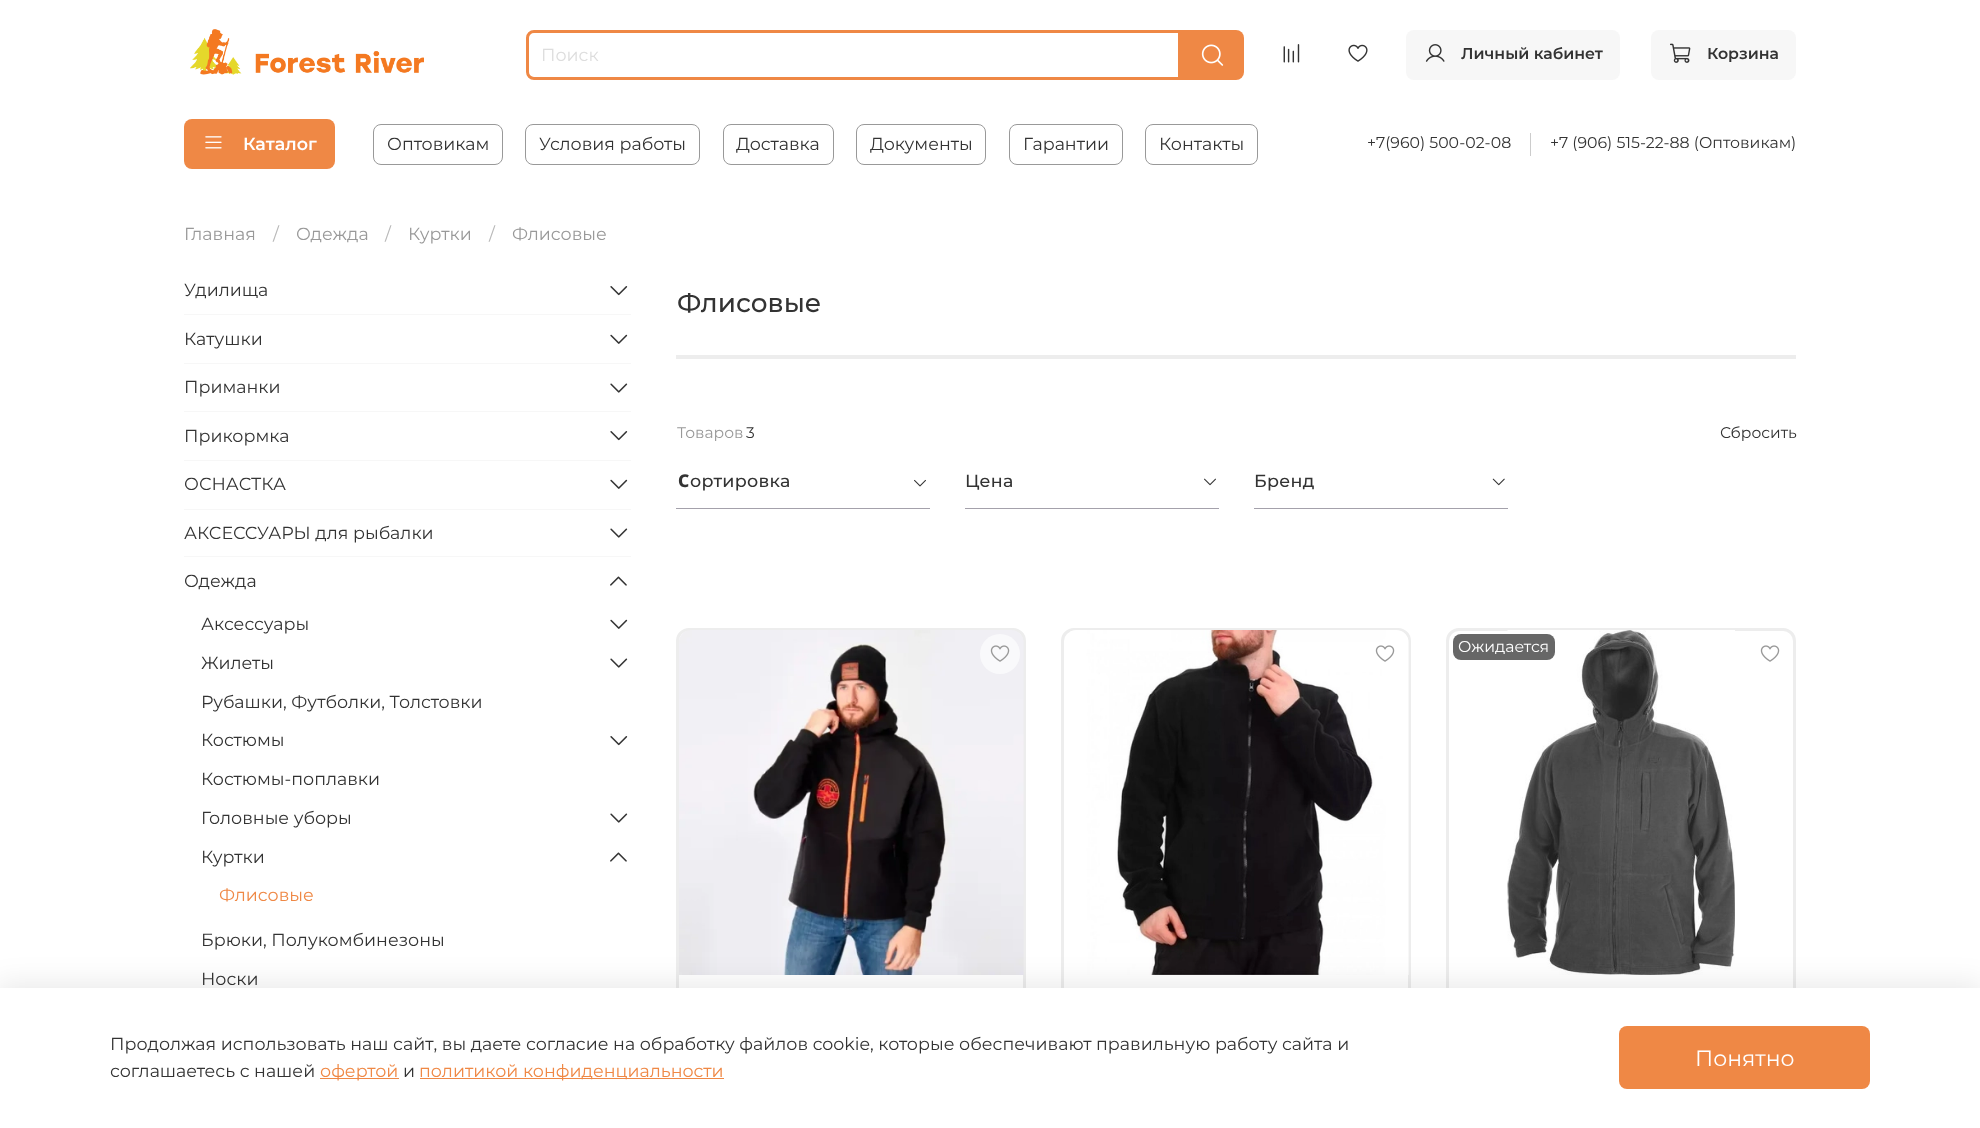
(async () => {
    const canvas = document.querySelector("canvas");
    canvas.width = 1980;
    canvas.height = 1128;
    const context = canvas.getContext("2d");
    context.miterLimit = 4;
    context.fontKerning = "normal";
    function write(s, x, y, font, color) {
        context.font = font;
        context.fillStyle = color;
        context.fillText(s, x, y);
    }
    function block(x, y, w, h, color) {
        context.fillStyle = color;
        context.fillRect(x, y, w, h);
    }
    function card(x, y, w, h, r, color) {
        context.fillStyle = color;
        context.beginPath();
        context.roundRect(x, y, w, h, r);
        context.fill();
    }
    async function photo(src, x, y, w, h) {
        const img = new Image();
        img.src = src;
        await img.decode();
        context.drawImage(img, x, y, w, h);
    }

    block(0, 0, 1980, 1128, "rgb(255, 255, 255)");
    await photo("media/1.png", 190, 29, 234, 46);
    context.beginPath();
    context.roundRect(527.5, 31.5, 652, 47, [6.5, 0, 0, 6.5]);
    context.strokeStyle = "rgb(239, 136, 69)";
    context.lineWidth = 3;
    context.stroke();
    write("Поиск", 541, 61, "17.5px Montserrat", "rgb(221, 221, 221)");
    context.fillStyle = "rgb(239, 136, 69)";
    context.beginPath();
    context.roundRect(1181, 30, 63, 50, [0, 8, 8, 0]);
    context.fill();
    await photo("media/2.png", 1201, 44, 23, 22);
    await photo("media/3.png", 1283, 44, 17, 19);
    await photo("media/4.png", 1348, 44, 20, 18);
    card(1406, 30, 214, 50, 8, "rgb(247, 247, 247)");
    await photo("media/5.png", 1425, 44, 20, 18);
    write("Личный кабинет", 1461, 59, "600 15.75px Montserrat", "rgb(51, 51, 51)");
    card(1651, 30, 145, 50, 8, "rgb(247, 247, 247)");
    await photo("media/6.png", 1670, 43, 21, 20);
    write("Корзина", 1707, 59, "600 15.75px Montserrat", "rgb(51, 51, 51)");
    card(184, 119, 151, 50, 8, "rgb(239, 136, 69)");
    await photo("media/7.png", 205, 136, 17, 13);
    write("Каталог", 243, 150, "600 17.5px Montserrat", "rgb(255, 255, 255)");
    context.beginPath();
    context.roundRect(373.5, 124.5, 129, 40, 7.5);
    context.strokeStyle = "rgb(153, 153, 153)";
    context.lineWidth = 1;
    context.stroke();
    write("Оптовикам", 387, 150, "17.5px Montserrat", "rgb(51, 51, 51)");
    context.beginPath();
    context.roundRect(525.5, 124.5, 174, 40, 7.5);
    context.stroke();
    write("Условия работы", 539, 150, "17.5px Montserrat", "rgb(51, 51, 51)");
    context.beginPath();
    context.roundRect(723.5, 124.5, 110, 40, 7.5);
    context.stroke();
    write("Доставка", 736, 150, "17.5px Montserrat", "rgb(51, 51, 51)");
    context.beginPath();
    context.roundRect(856.5, 124.5, 129, 40, 7.5);
    context.stroke();
    write("Документы", 870, 150, "17.5px Montserrat", "rgb(51, 51, 51)");
    context.beginPath();
    context.roundRect(1009.5, 124.5, 113, 40, 7.5);
    context.stroke();
    write("Гарантии", 1023, 150, "17.5px Montserrat", "rgb(51, 51, 51)");
    context.beginPath();
    context.roundRect(1145.5, 124.5, 112, 40, 7.5);
    context.stroke();
    write("Контакты", 1159, 150, "17.5px Montserrat", "rgb(51, 51, 51)");
    block(1530, 133, 1, 23, "rgb(204, 204, 204)");
    write("+7(960) 500-02-08", 1367, 148, "15.75px Montserrat", "rgb(51, 51, 51)");
    write("+7 (906) 515-22-88 (Оптовикам)", 1550, 148, "15.75px Montserrat", "rgb(51, 51, 51)");
    write("Главная", 184, 240, "17.5px Montserrat", "rgb(153, 153, 153)");
    write("/", 273, 240, "17.5px Montserrat", "rgb(184, 184, 184)");
    write("Одежда", 296, 240, "17.5px Montserrat", "rgb(153, 153, 153)");
    write("/", 385, 240, "17.5px Montserrat", "rgb(184, 184, 184)");
    write("Куртки", 408, 240, "17.5px Montserrat", "rgb(153, 153, 153)");
    write("/", 489, 240, "17.5px Montserrat", "rgb(184, 184, 184)");
    write("Флисовые", 512, 240, "17.5px Montserrat", "rgb(153, 153, 153)");
    block(184, 314, 447, 1, "rgb(247, 247, 247)");
    write("Удилища", 184, 296, "17.5px Montserrat", "rgb(51, 51, 51)");
    await photo("media/8.png", 610, 286, 18, 10);
    block(184, 363, 447, 1, "rgb(247, 247, 247)");
    write("Катушки", 184, 345, "17.5px Montserrat", "rgb(51, 51, 51)");
    await photo("media/9.png", 610, 334, 18, 10);
    block(184, 411, 447, 1, "rgb(247, 247, 247)");
    write("Приманки", 184, 393, "17.5px Montserrat", "rgb(51, 51, 51)");
    await photo("media/10.png", 610, 383, 18, 10);
    block(184, 460, 447, 1, "rgb(247, 247, 247)");
    write("Прикормка", 184, 442, "17.5px Montserrat", "rgb(51, 51, 51)");
    await photo("media/8.png", 610, 431, 18, 10);
    block(184, 509, 447, 1, "rgb(247, 247, 247)");
    write("ОСНАСТКА", 184, 490, "17.5px Montserrat", "rgb(51, 51, 51)");
    await photo("media/9.png", 610, 479, 18, 10);
    block(184, 556, 447, 1, "rgb(247, 247, 247)");
    write("АКСЕССУАРЫ для рыбалки", 184, 539, "17.5px Montserrat", "rgb(51, 51, 51)");
    await photo("media/10.png", 610, 528, 18, 10);
    write("Одежда", 184, 587, "17.5px Montserrat", "rgb(51, 51, 51)");
    await photo("media/11.png", 610, 576, 17, 10);
    write("Аксессуары", 201, 630, "17.5px Montserrat", "rgb(51, 51, 51)");
    await photo("media/9.png", 610, 619, 18, 10);
    write("Жилеты", 201, 669, "17.5px Montserrat", "rgb(51, 51, 51)");
    await photo("media/10.png", 610, 658, 18, 10);
    write("Рубашки, Футболки, Толстовки", 201, 708, "17.5px Montserrat", "rgb(51, 51, 51)");
    write("Костюмы", 201, 746, "17.5px Montserrat", "rgb(51, 51, 51)");
    await photo("media/8.png", 610, 736, 18, 10);
    write("Костюмы-поплавки", 201, 785, "17.5px Montserrat", "rgb(51, 51, 51)");
    write("Головные уборы", 201, 824, "17.5px Montserrat", "rgb(51, 51, 51)");
    await photo("media/10.png", 610, 813, 18, 10);
    write("Куртки", 201, 863, "17.5px Montserrat", "rgb(51, 51, 51)");
    await photo("media/12.png", 610, 852, 17, 10);
    write("Флисовые", 219, 901, "17.5px Montserrat", "rgb(239, 136, 69)");
    write("Брюки, Полукомбинезоны", 201, 946, "17.5px Montserrat", "rgb(51, 51, 51)");
    write("Носки", 201, 985, "17.5px Montserrat", "rgb(51, 51, 51)");
    write("Флисовые", 677, 312, "500 26.25px Montserrat", "rgb(51, 51, 51)");
    block(676, 355, 1120, 4, "rgb(237, 237, 237)");
    write("Товаров", 677, 438, "15.5px Montserrat", "rgb(153, 153, 153)");
    write("3", 746, 438, "15.5px Montserrat", "rgb(51, 51, 51)");
    write("Сбросить", 1720, 438, "15.5px Montserrat", "rgb(51, 51, 51)");
    block(676, 508, 254, 1, "rgb(164, 161, 171)");
    context.letterSpacing = "0.25px";
    write("С", 678, 487, "800 17.5px Noto Sans", "rgb(51, 51, 51)");
    write("ортировка", 690, 487, "500 17.5px Montserrat", "rgb(51, 51, 51)");
    await photo("media/13.png", 914, 479, 12, 8);
    block(965, 508, 254, 1, "rgb(164, 161, 171)");
    write("Цена", 965, 487, "500 17.5px Montserrat", "rgb(51, 51, 51)");
    await photo("media/14.png", 1204, 478, 12, 8);
    block(1254, 508, 254, 1, "rgb(164, 161, 171)");
    write("Бренд", 1254, 487, "500 17.5px Montserrat", "rgb(51, 51, 51)");
    await photo("media/15.png", 1492, 478, 13, 8);
    context.beginPath();
    context.roundRect(677.5, 629.5, 347, 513, 11.5);
    context.strokeStyle = "rgb(237, 237, 237)";
    context.lineWidth = 3;
    context.stroke();
    await photo("media/16.png", 679, 630, 345, 345);
    context.fillStyle = "rgb(249, 249, 251)";
    context.beginPath();
    context.arc(1000, 654, 20, 0, Math.PI * 2);
    context.fill();
    await photo("media/17.png", 990, 645, 20, 17);
    context.beginPath();
    context.roundRect(1062.5, 629.5, 347, 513, 11.5);
    context.stroke();
    await photo("media/18.png", 1070, 630, 339, 345);
    await photo("media/19.png", 1375, 645, 20, 17);
    context.beginPath();
    context.roundRect(1447.5, 629.5, 347, 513, 11.5);
    context.stroke();
    await photo("media/20.png", 1507, 630, 228, 345);
    card(1453, 634, 102, 26, 8, "rgb(103, 103, 103)");
    context.letterSpacing = "0px";
    write("Ожидается", 1458, 652, "15.75px Montserrat", "rgb(255, 255, 255)");
    await photo("media/19.png", 1760, 645, 20, 17);
    context.fillStyle = "rgba(0, 0, 0, 0.09)";
    context.filter = "blur(14.5px)";
    context.beginPath();
    context.rect(-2, 984, 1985, 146);
    context.fill();
    context.filter = "none";
    block(0, 988, 1980, 140, "rgb(255, 255, 255)");
    write("Продолжая использовать наш сайт, вы даете согласие на обработку файлов cookie, которые обеспечивают правильную работу сайта и", 110, 1050, "17.5px Montserrat", "rgb(51, 51, 51)");
    write("соглашаетесь с нашей", 110, 1077, "17.5px Montserrat", "rgb(51, 51, 51)");
    block(320, 1078, 79, 1, "rgb(239, 136, 69)");
    write("офертой", 320, 1077, "17.5px Montserrat", "rgb(239, 136, 69)");
    write("и", 403, 1077, "17.5px Montserrat", "rgb(51, 51, 51)");
    block(420, 1078, 304, 1, "rgb(239, 136, 69)");
    write("политикой конфиденциальности", 419, 1077, "17.5px Montserrat", "rgb(239, 136, 69)");
    card(1619, 1026, 251, 63, 8, "rgb(239, 136, 69)");
    write("Понятно", 1695, 1066, "22px Montserrat", "rgb(255, 255, 255)");
})();
